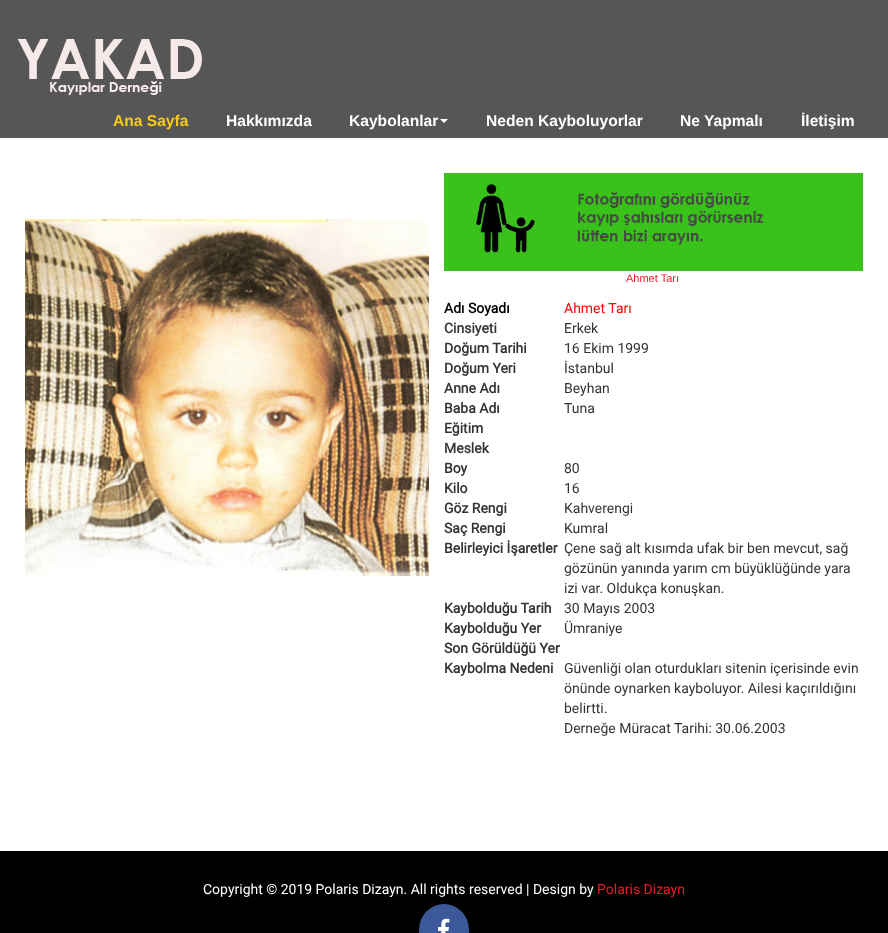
(async () => {
    const canvas = document.querySelector("canvas");
    canvas.width = 888;
    canvas.height = 933;
    const context = canvas.getContext("2d");
    context.miterLimit = 4;
    context.fontKerning = "normal";
    function write(s, x, y, font, color) {
        context.font = font;
        context.fillStyle = color;
        context.fillText(s, x, y);
    }
    function block(x, y, w, h, color) {
        context.fillStyle = color;
        context.fillRect(x, y, w, h);
    }
    async function photo(src, x, y, w, h) {
        const img = new Image();
        img.src = src;
        await img.decode();
        context.drawImage(img, x, y, w, h);
    }

    block(0, 0, 888, 933, "rgb(255, 255, 255)");
    block(0, 0, 888, 138, "rgb(86, 86, 86)");
    await photo("media/1.png", 17, 39, 185, 56);
    write("Ana Sayfa", 113, 126, "bold 15.6px Liberation Sans", "rgb(247, 202, 23)");
    write("Hakkımızda", 226, 126, "bold 15.6px Liberation Sans", "rgb(255, 255, 255)");
    write("Kaybolanlar", 349, 126, "bold 15.6px Liberation Sans", "rgb(255, 255, 255)");
    context.beginPath();
    context.moveTo(440, 119);
    context.lineTo(448, 119);
    context.lineTo(444, 123);
    context.closePath();
    context.fill();
    write("Neden Kayboluyorlar", 486, 126, "bold 15.6px Liberation Sans", "rgb(255, 255, 255)");
    write("Ne Yapmalı", 680, 126, "bold 15.6px Liberation Sans", "rgb(255, 255, 255)");
    write("İletişim", 801, 126, "bold 15.6px Liberation Sans", "rgb(255, 255, 255)");
    await photo("media/2.png", 25, 219, 404, 357);
    await photo("media/3.png", 444, 173, 419, 98);
    write("Ahmet Tarı", 626, 282, "11px Liberation Sans", "rgb(237, 28, 36)");
    write("Adı Soyadı", 444, 313, "bold 14px Roboto", "rgb(0, 0, 0)");
    write("Ahmet Tarı", 564, 313, "14px Roboto", "rgb(255, 0, 0)");
    write("Cinsiyeti", 444, 333, "bold 14px Roboto", "rgb(51, 51, 51)");
    write("Erkek", 564, 333, "14px Roboto", "rgb(51, 51, 51)");
    write("Doğum Tarihi", 444, 353, "bold 14px Roboto", "rgb(51, 51, 51)");
    write("16 Ekim 1999", 564, 353, "14px Roboto", "rgb(51, 51, 51)");
    write("Doğum Yeri", 444, 373, "bold 14px Roboto", "rgb(51, 51, 51)");
    write("İstanbul", 564, 373, "14px Roboto", "rgb(51, 51, 51)");
    write("Anne Adı", 444, 393, "bold 14px Roboto", "rgb(51, 51, 51)");
    write("Beyhan", 564, 393, "14px Roboto", "rgb(51, 51, 51)");
    write("Baba Adı", 444, 413, "bold 14px Roboto", "rgb(51, 51, 51)");
    write("Tuna", 564, 413, "14px Roboto", "rgb(51, 51, 51)");
    write("Eğitim", 444, 433, "bold 14px Roboto", "rgb(51, 51, 51)");
    write("Meslek", 444, 453, "bold 14px Roboto", "rgb(51, 51, 51)");
    write("Boy", 444, 473, "bold 14px Roboto", "rgb(51, 51, 51)");
    write("80", 564, 473, "14px Roboto", "rgb(51, 51, 51)");
    write("Kilo", 444, 493, "bold 14px Roboto", "rgb(51, 51, 51)");
    write("16", 564, 493, "14px Roboto", "rgb(51, 51, 51)");
    write("Göz Rengi", 444, 513, "bold 14px Roboto", "rgb(51, 51, 51)");
    write("Kahverengi", 564, 513, "14px Roboto", "rgb(51, 51, 51)");
    write("Saç Rengi", 444, 533, "bold 14px Roboto", "rgb(51, 51, 51)");
    write("Kumral", 564, 533, "14px Roboto", "rgb(51, 51, 51)");
    write("Belirleyici İşaretler", 444, 553, "bold 14px Roboto", "rgb(51, 51, 51)");
    write("Çene sağ alt kısımda ufak bir ben mevcut, sağ", 564, 553, "14px Roboto", "rgb(51, 51, 51)");
    write("gözünün yanında yarım cm büyüklüğünde yara", 564, 573, "14px Roboto", "rgb(51, 51, 51)");
    write("izi var. Oldukça konuşkan.", 564, 593, "14px Roboto", "rgb(51, 51, 51)");
    write("Kaybolduğu Tarih", 444, 613, "bold 14px Roboto", "rgb(51, 51, 51)");
    write("30 Mayıs 2003", 564, 613, "14px Roboto", "rgb(51, 51, 51)");
    write("Kaybolduğu Yer", 444, 633, "bold 14px Roboto", "rgb(51, 51, 51)");
    write("Ümraniye", 564, 633, "14px Roboto", "rgb(51, 51, 51)");
    write("Son Görüldüğü Yer", 444, 653, "bold 14px Roboto", "rgb(51, 51, 51)");
    write("Kaybolma Nedeni", 444, 673, "bold 14px Roboto", "rgb(51, 51, 51)");
    write("Güvenliği olan oturdukları sitenin içerisinde evin", 564, 673, "14px Roboto", "rgb(51, 51, 51)");
    write("önünde oynarken kayboluyor. Ailesi kaçırıldığını", 564, 693, "14px Roboto", "rgb(51, 51, 51)");
    write("belirtti.", 564, 713, "14px Roboto", "rgb(51, 51, 51)");
    write("Derneğe Müracat Tarihi: 30.06.2003", 564, 733, "14px Roboto", "rgb(51, 51, 51)");
    block(0, 851, 888, 82, "rgb(0, 0, 0)");
    write("Copyright © 2019 Polaris Dizayn. All rights reserved | Design by", 203, 894, "14px Roboto", "rgb(255, 255, 255)");
    write("Polaris Dizayn", 597, 894, "14px Roboto", "rgb(237, 28, 36)");
    context.fillStyle = "rgb(59, 89, 152)";
    context.beginPath();
    context.ellipse(444, 930, 25, 26, 0, 0, Math.PI * 2);
    context.fill();
    await photo("media/4.png", 438, 918, 12, 15);
})();
